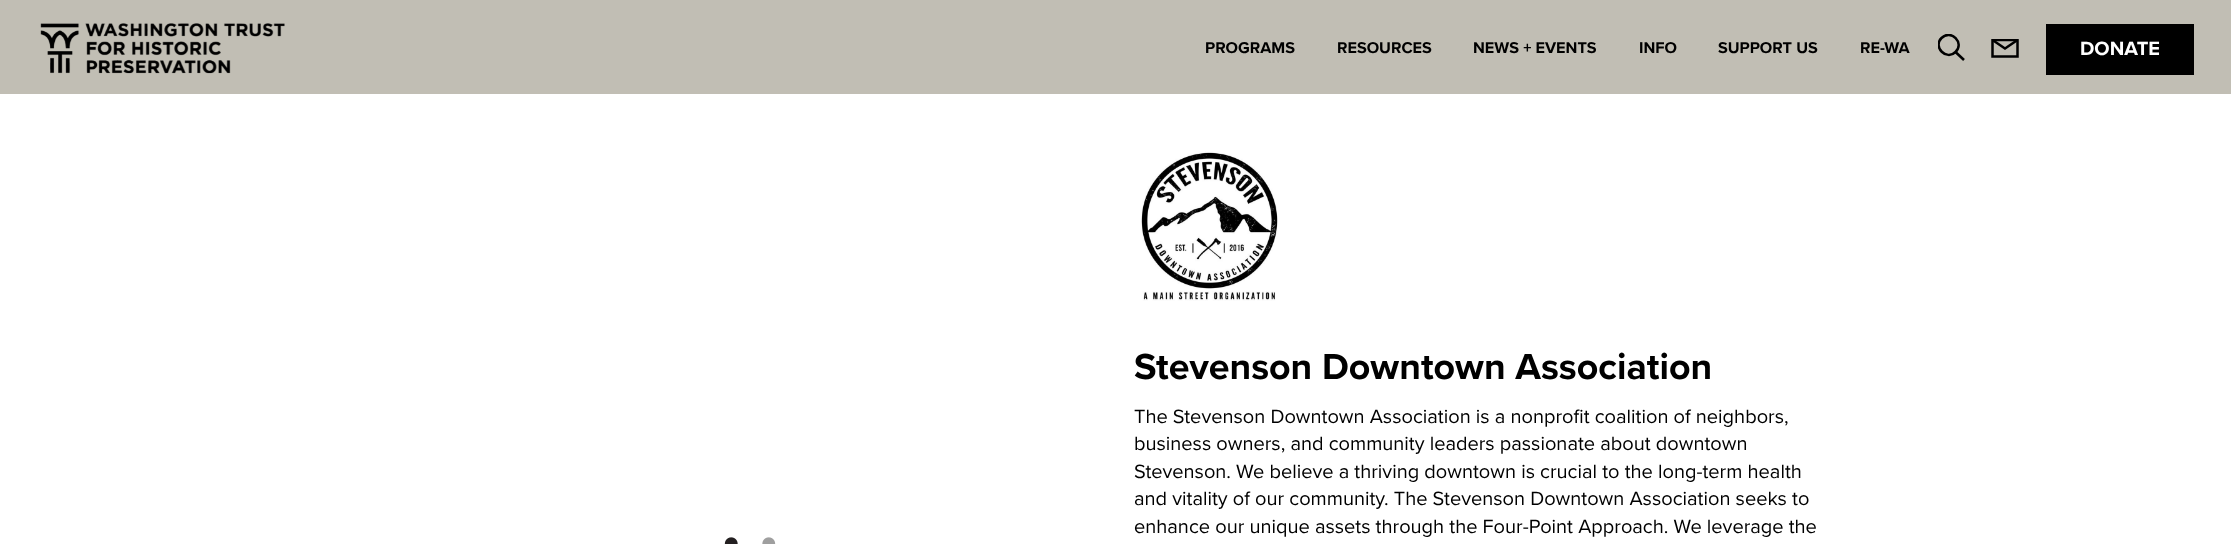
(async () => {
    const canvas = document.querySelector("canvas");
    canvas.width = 2231;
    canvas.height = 544;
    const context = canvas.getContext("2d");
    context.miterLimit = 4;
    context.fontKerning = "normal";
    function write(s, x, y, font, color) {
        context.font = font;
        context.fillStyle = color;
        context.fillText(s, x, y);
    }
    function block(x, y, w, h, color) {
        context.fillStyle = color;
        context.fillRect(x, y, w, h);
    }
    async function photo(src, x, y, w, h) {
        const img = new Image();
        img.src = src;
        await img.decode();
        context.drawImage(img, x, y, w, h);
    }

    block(0, 0, 2231, 544, "rgb(193, 190, 180)");
    block(0, 94, 2231, 450, "rgb(255, 255, 255)");
    await photo("media/1.png", 40, 23, 245, 51);
    write("PROGRAMS", 1205, 53, "bold 16.25px Proxima Nova", "rgb(0, 0, 0)");
    write("RESOURCES", 1337, 53, "bold 16.25px Proxima Nova", "rgb(0, 0, 0)");
    write("NEWS + EVENTS", 1473, 53, "bold 16.25px Proxima Nova", "rgb(0, 0, 0)");
    write("INFO", 1639, 53, "bold 16.25px Proxima Nova", "rgb(0, 0, 0)");
    write("SUPPORT US", 1718, 53, "bold 16.25px Proxima Nova", "rgb(0, 0, 0)");
    write("RE-WA", 1860, 53, "bold 16.25px Proxima Nova", "rgb(0, 0, 0)");
    context.save();
    context.beginPath();
    context.rect(1938, 34, 28, 29);
    context.clip();
    context.beginPath();
    context.moveTo(1941.5, 38);
    context.bezierCurveTo(1951, 28.5, 1965, 43, 1955.5, 52);
    context.bezierCurveTo(1946.5, 61, 1932.5, 47, 1941.5, 38);
    context.closePath();
    context.strokeStyle = "rgb(0, 0, 0)";
    context.lineWidth = 2.5;
    context.stroke();
    context.restore();
    context.beginPath();
    context.moveTo(1955.5, 52);
    context.lineTo(1964, 60);
    context.strokeStyle = "rgb(0, 0, 0)";
    context.lineWidth = 2.5;
    context.stroke();
    context.save();
    context.beginPath();
    context.rect(1991, 39, 29, 29);
    context.clip();
    context.beginPath();
    context.moveTo(1992.5, 40);
    context.lineTo(2017.5, 40);
    context.lineTo(2017.5, 56.5);
    context.lineTo(1992.5, 56.5);
    context.closePath();
    context.stroke();
    context.restore();
    context.beginPath();
    context.moveTo(1992.5, 40);
    context.lineTo(2005, 48.5);
    context.lineTo(2017.5, 40);
    context.stroke();
    block(2046, 24, 148, 51, "rgb(0, 0, 0)");
    write("DONATE", 2080, 55, "bold 20px Proxima Nova", "rgb(255, 255, 255)");
    await photo("media/2.png", 1141, 151, 137, 150);
    write("Stevenson Downtown Association", 1134, 379, "bold 37.5px Proxima Nova", "rgb(0, 0, 0)");
    write("The Stevenson Downtown Association is a nonprofit coalition of neighbors,", 1134, 423, "20px Proxima Nova", "rgb(0, 0, 0)");
    write("business owners, and community leaders passionate about downtown", 1134, 450, "20px Proxima Nova", "rgb(0, 0, 0)");
    write("Stevenson. We believe a thriving downtown is crucial to the long-term health", 1134, 478, "20px Proxima Nova", "rgb(0, 0, 0)");
    write("and vitality of our community. The Stevenson Downtown Association seeks to", 1134, 505, "20px Proxima Nova", "rgb(0, 0, 0)");
    write("enhance our unique assets through the Four-Point Approach. We leverage the", 1134, 533, "20px Proxima Nova", "rgb(0, 0, 0)");
    await photo("media/3.png", 724, 537, 14, 7);
    await photo("media/4.png", 762, 537, 14, 7);
})();
